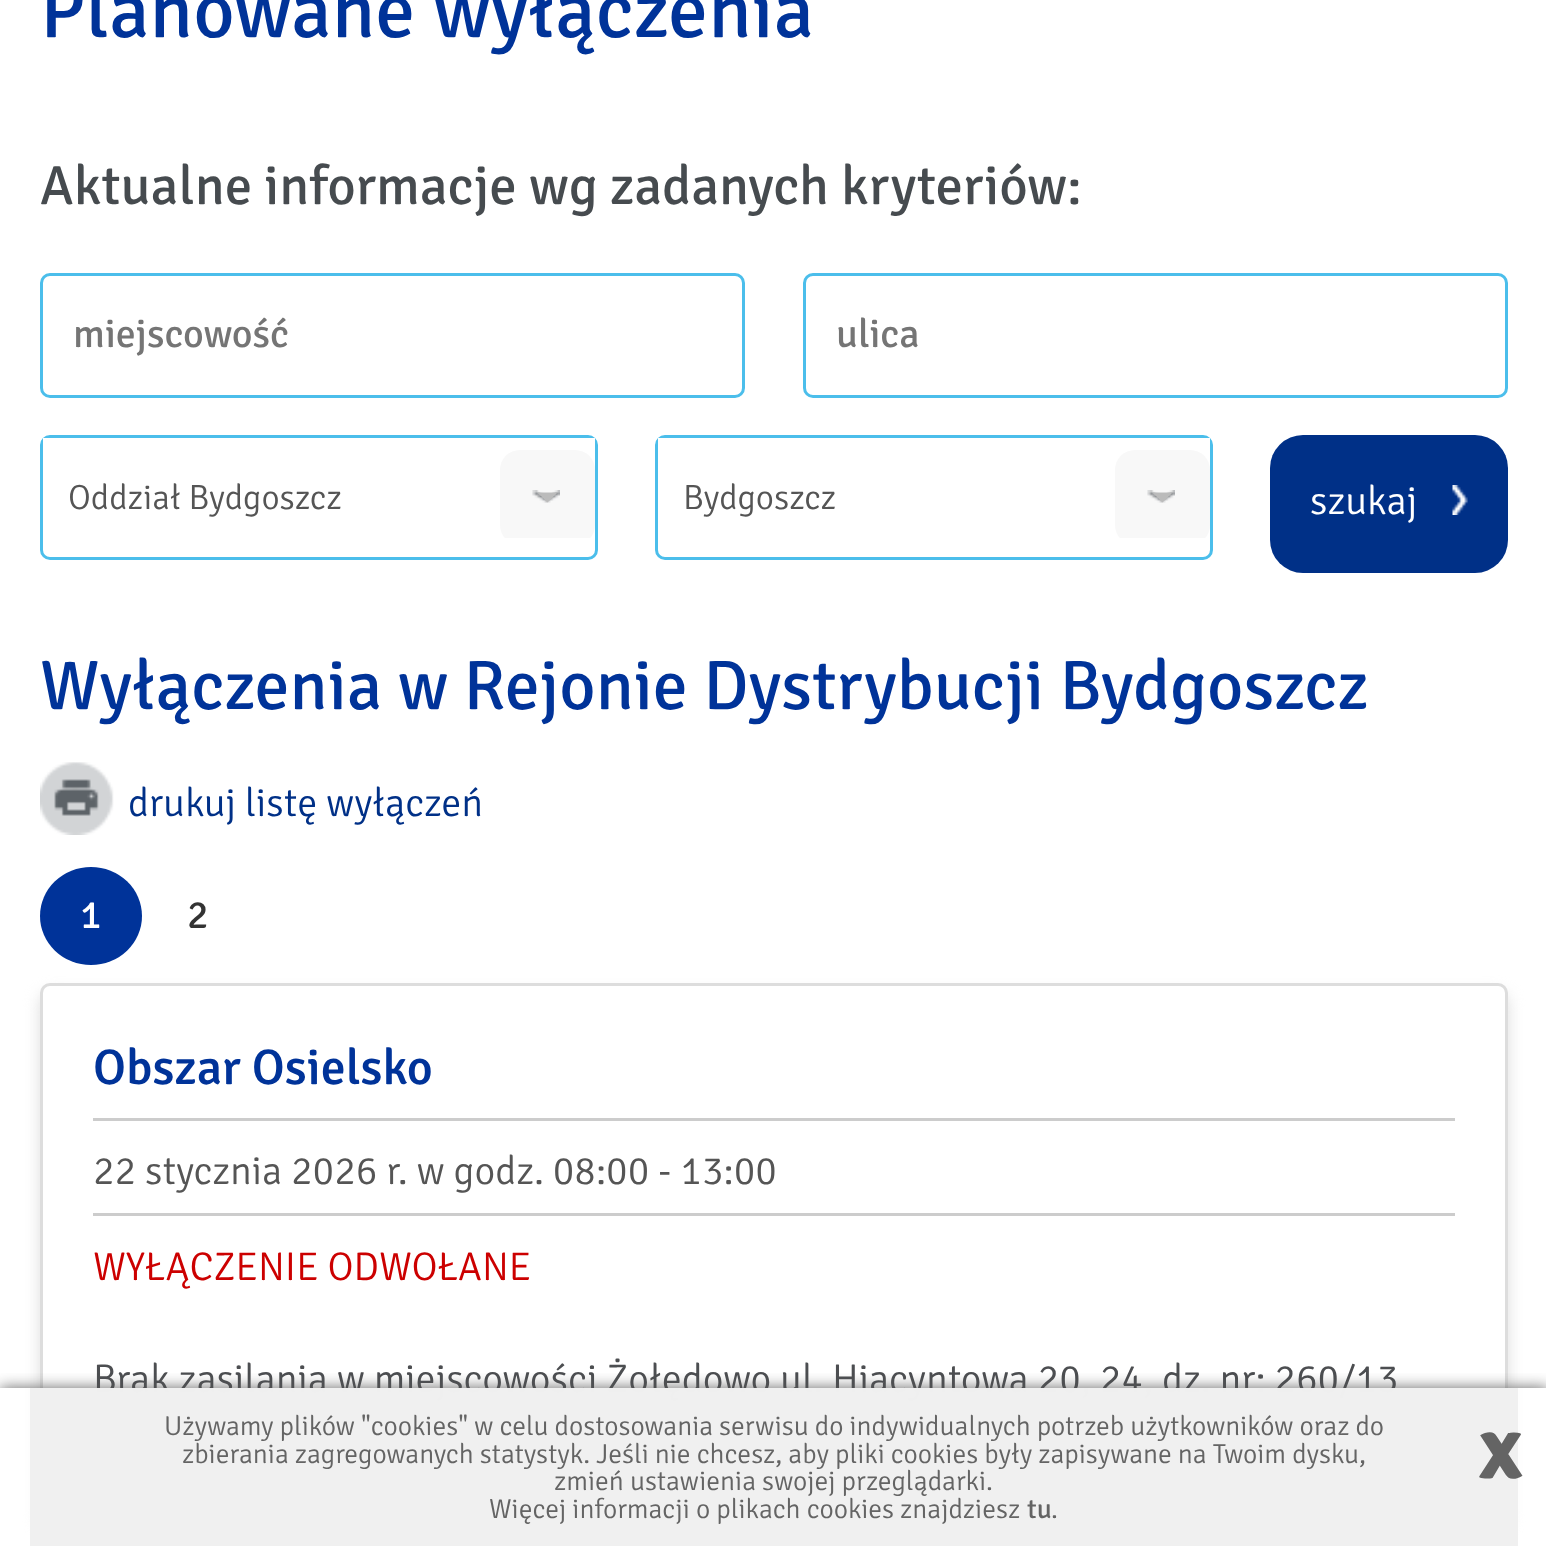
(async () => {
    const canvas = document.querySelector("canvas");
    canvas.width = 1546;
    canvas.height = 1546;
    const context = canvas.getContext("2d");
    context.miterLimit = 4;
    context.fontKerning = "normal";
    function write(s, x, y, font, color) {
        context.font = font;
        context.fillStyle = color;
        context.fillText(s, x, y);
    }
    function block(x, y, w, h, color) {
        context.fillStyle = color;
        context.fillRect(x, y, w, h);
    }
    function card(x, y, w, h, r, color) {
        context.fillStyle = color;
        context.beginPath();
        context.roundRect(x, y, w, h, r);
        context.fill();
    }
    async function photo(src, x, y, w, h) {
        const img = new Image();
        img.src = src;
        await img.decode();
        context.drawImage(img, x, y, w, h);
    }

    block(0, 0, 1546, 1546, "rgb(255, 255, 255)");
    write("Planowane wyłączenia", 40, 37, "80px Signika", "rgb(0, 51, 153)");
    write("Aktualne informacje wg zadanych kryteriów:", 40, 204, "55px Signika", "rgb(70, 75, 79)");
    context.beginPath();
    context.roundRect(41.5, 274.5, 702, 122, 8.5);
    context.strokeStyle = "rgb(75, 190, 235)";
    context.lineWidth = 3;
    context.stroke();
    write("miejscowość", 73, 347, "40px Signika", "rgb(117, 117, 117)");
    context.beginPath();
    context.roundRect(804.5, 274.5, 702, 122, 8.5);
    context.stroke();
    write("ulica", 836, 347, "40px Signika", "rgb(117, 117, 117)");
    context.beginPath();
    context.roundRect(41.5, 436.5, 555, 122, 8.5);
    context.stroke();
    block(43, 438, 552, 7, "rgb(255, 255, 255)");
    write("Oddział Bydgoszcz", 68, 509, "300 35px Signika", "rgb(85, 85, 85)");
    context.save();
    context.beginPath();
    context.rect(43, 438, 552, 100);
    context.clip();
    card(500, 450, 95, 95, 20, "rgb(248, 248, 248)");
    context.restore();
    await photo("media/1.png", 532, 490, 28, 13);
    context.fillStyle = "rgb(187, 187, 187)";
    context.beginPath();
    context.moveTo(537.5, 492.5);
    context.lineTo(557.5, 492.5);
    context.lineTo(547.5, 502.5);
    context.closePath();
    context.fill();
    context.beginPath();
    context.roundRect(656.5, 436.5, 555, 122, 8.5);
    context.stroke();
    block(658, 438, 552, 7, "rgb(255, 255, 255)");
    write("Bydgoszcz", 683, 509, "300 35px Signika", "rgb(85, 85, 85)");
    context.save();
    context.beginPath();
    context.rect(658, 438, 552, 100);
    context.clip();
    card(1115, 450, 95, 95, 20, "rgb(248, 248, 248)");
    context.restore();
    await photo("media/1.png", 1147, 490, 28, 13);
    context.fillStyle = "rgb(187, 187, 187)";
    context.beginPath();
    context.moveTo(1152.5, 492.5);
    context.lineTo(1172.5, 492.5);
    context.lineTo(1162.5, 502.5);
    context.closePath();
    context.fill();
    card(1270, 435, 238, 138, 33, "rgb(0, 48, 135)");
    write("szukaj", 1310, 514, "300 40px Signika", "rgb(255, 255, 255)");
    await photo("media/2.png", 1452, 485, 16, 30);
    write("Wyłączenia w Rejonie Dystrybucji Bydgoszcz", 40, 709, "70px Signika", "rgb(0, 51, 153)");
    await photo("media/3.png", 40, 762, 74, 73);
    write("drukuj listę wyłączeń", 128, 816, "300 40px Signika", "rgb(0, 48, 135)");
    context.fillStyle = "rgb(0, 51, 153)";
    context.beginPath();
    context.ellipse(91, 916, 51, 49, 0, 0, Math.PI * 2);
    context.fill();
    write("1", 80, 928, "40px Signika", "rgb(255, 255, 255)");
    write("2", 187, 928, "40px Signika", "rgb(51, 51, 51)");
    context.fillStyle = "rgb(221, 221, 221)";
    context.filter = "blur(7.5px)";
    context.beginPath();
    context.roundRect(40, 993, 1468, 535, 10);
    context.fill();
    context.filter = "none";
    context.fillStyle = "rgb(255, 255, 255)";
    context.beginPath();
    context.roundRect(41.5, 984.5, 1465, 532, 8.5);
    context.fill();
    context.strokeStyle = "rgb(221, 221, 221)";
    context.stroke();
    write("Obszar Osielsko", 93, 1084, "300 50px 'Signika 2'", "rgb(0, 51, 153)");
    block(93, 1118, 1362, 3, "rgb(204, 204, 204)");
    write("22 stycznia 2026 r. w godz. 08:00 - 13:00", 93, 1184, "300 40px Signika", "rgb(85, 85, 85)");
    block(93, 1213, 1362, 3, "rgb(204, 204, 204)");
    write("WYŁĄCZENIE ODWOŁANE", 93, 1280, "300 40px Signika", "rgb(204, 0, 0)");
    write("Brak zasilania w miejscowości Żołędowo ul. Hiacyntowa 20, 24, dz. nr: 260/13", 93, 1392, "300 40px Signika", "rgb(76, 78, 81)");
    context.save();
    context.beginPath();
    context.rect(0, 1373, 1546, 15);
    context.clip();
    context.fillStyle = "rgba(85, 85, 85, 0.9)";
    context.filter = "blur(7.5px)";
    context.beginPath();
    context.rect(0, 1388, 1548, 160);
    context.fill();
    context.filter = "none";
    context.restore();
    block(30, 1388, 1488, 150, "rgba(255, 255, 255, 0.9)");
    block(30, 1388, 1488, 158, "rgba(238, 238, 238, 0.9)");
    write("Używamy plików \"cookies\" w celu dostosowania serwisu do indywidualnych potrzeb użytkowników oraz do", 164, 1435, "300 27.5px Signika", "rgb(100, 100, 100)");
    write("zbierania zagregowanych statystyk. Jeśli nie chcesz, aby pliki cookies były zapisywane na Twoim dysku,", 182, 1463, "300 27.5px Signika", "rgb(100, 100, 100)");
    write("zmień ustawienia swojej przeglądarki.", 554, 1490, "300 27.5px Signika", "rgb(100, 100, 100)");
    write("Więcej informacji o plikach cookies znajdziesz", 489, 1518, "300 27.5px Signika", "rgb(100, 100, 100)");
    write("tu", 1027, 1518, "27.5px Signika", "rgb(100, 100, 100)");
    write(".", 1051, 1518, "300 27.5px Signika", "rgb(100, 100, 100)");
    write("x", 1479, 1478, "bold 90px Signika", "rgb(100, 100, 100)");
})();
